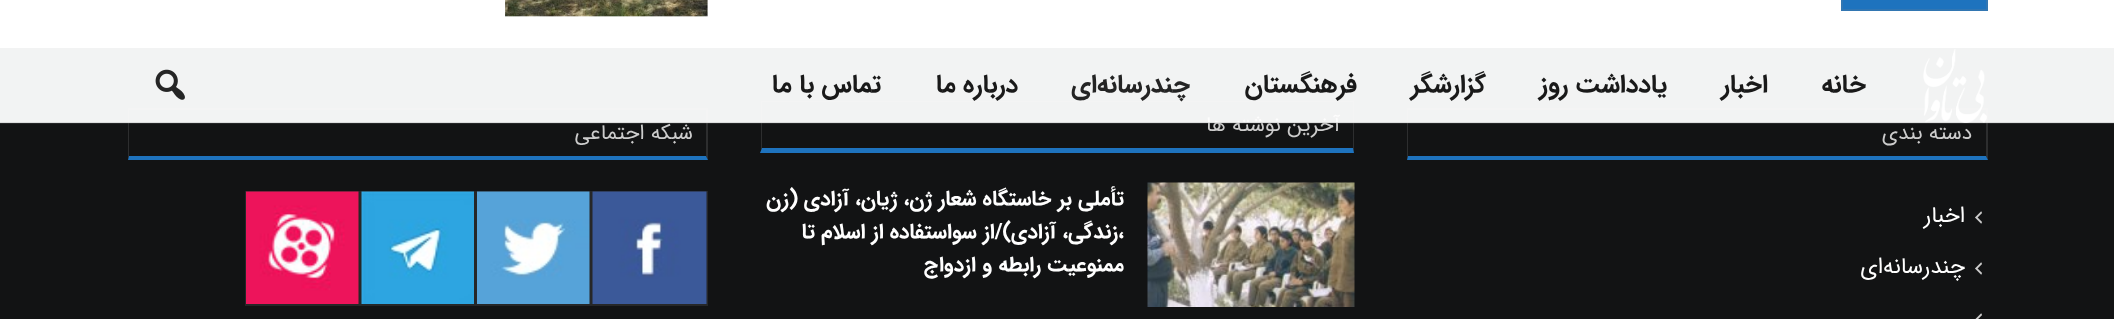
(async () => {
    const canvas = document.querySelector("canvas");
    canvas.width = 2114;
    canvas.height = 319;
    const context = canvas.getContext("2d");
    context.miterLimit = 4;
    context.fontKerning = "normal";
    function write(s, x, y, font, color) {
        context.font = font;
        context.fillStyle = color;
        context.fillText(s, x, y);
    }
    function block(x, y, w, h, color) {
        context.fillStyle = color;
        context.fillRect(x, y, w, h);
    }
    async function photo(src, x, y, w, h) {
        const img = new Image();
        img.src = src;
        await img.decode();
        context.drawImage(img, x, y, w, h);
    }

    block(0, 0, 2114, 319, "rgb(255, 255, 255)");
    context.fillStyle = "rgb(30, 115, 190)";
    context.beginPath();
    context.rect(1842, -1, 145, 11);
    context.fill();
    context.strokeStyle = "rgb(50, 118, 178)";
    context.lineWidth = 2;
    context.stroke();
    await photo("media/1.png", 505, 0, 203, 17);
    block(0, 48, 2114, 271, "rgb(18, 19, 20)");
    context.fillStyle = "rgb(46, 46, 47)";
    context.beginPath();
    context.moveTo(1407, 108);
    context.lineTo(1988, 108);
    context.lineTo(1986, 110);
    context.lineTo(1408, 110);
    context.closePath();
    context.fill();
    context.fillStyle = "rgba(128, 128, 128, 0.25)";
    context.beginPath();
    context.moveTo(1988, 108);
    context.lineTo(1988, 160);
    context.lineTo(1986, 156);
    context.lineTo(1986, 110);
    context.closePath();
    context.fill();
    context.fillStyle = "rgb(30, 115, 190)";
    context.beginPath();
    context.moveTo(1988, 160);
    context.lineTo(1407, 160);
    context.lineTo(1408, 156);
    context.lineTo(1986, 156);
    context.closePath();
    context.fill();
    context.fillStyle = "rgba(128, 128, 128, 0.25)";
    context.beginPath();
    context.moveTo(1407, 160);
    context.lineTo(1407, 108);
    context.lineTo(1408, 110);
    context.lineTo(1408, 156);
    context.closePath();
    context.fill();
    context.save();
    context.beginPath();
    context.rect(761, 101, 594, 52);
    context.clip();
    context.fillStyle = "rgb(46, 46, 47)";
    context.beginPath();
    context.moveTo(760, 100);
    context.lineTo(1354, 100);
    context.lineTo(1353, 102);
    context.lineTo(762, 102);
    context.closePath();
    context.fill();
    context.restore();
    context.beginPath();
    context.moveTo(1354, 100);
    context.lineTo(1354, 153);
    context.lineTo(1353, 148);
    context.lineTo(1353, 102);
    context.closePath();
    context.fill();
    context.fillStyle = "rgb(30, 115, 190)";
    context.beginPath();
    context.moveTo(1354, 153);
    context.lineTo(760, 153);
    context.lineTo(762, 148);
    context.lineTo(1353, 148);
    context.closePath();
    context.fill();
    context.save();
    context.beginPath();
    context.rect(761, 101, 594, 52);
    context.clip();
    context.fillStyle = "rgba(128, 128, 128, 0.25)";
    context.beginPath();
    context.moveTo(760, 153);
    context.lineTo(760, 100);
    context.lineTo(762, 102);
    context.lineTo(762, 148);
    context.closePath();
    context.fill();
    context.restore();
    context.direction = "rtl";
    write("آخرین نوشته ها", 1340, 131, "21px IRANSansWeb", "rgb(204, 204, 204)");
    context.fillStyle = "rgb(46, 46, 47)";
    context.beginPath();
    context.moveTo(128, 108);
    context.lineTo(708, 108);
    context.lineTo(706, 110);
    context.lineTo(129, 110);
    context.closePath();
    context.fill();
    context.fillStyle = "rgba(128, 128, 128, 0.25)";
    context.beginPath();
    context.moveTo(708, 108);
    context.lineTo(708, 160);
    context.lineTo(706, 156);
    context.lineTo(706, 110);
    context.closePath();
    context.fill();
    context.fillStyle = "rgb(30, 115, 190)";
    context.beginPath();
    context.moveTo(708, 160);
    context.lineTo(128, 160);
    context.lineTo(129, 156);
    context.lineTo(706, 156);
    context.closePath();
    context.fill();
    context.fillStyle = "rgba(128, 128, 128, 0.25)";
    context.beginPath();
    context.moveTo(128, 160);
    context.lineTo(128, 108);
    context.lineTo(129, 110);
    context.lineTo(129, 156);
    context.closePath();
    context.fill();
    block(0, 48, 2114, 75, "rgba(255, 255, 255, 0.95)");
    write("شبکه اجتماعی", 693, 139, "21px IRANSansWeb", "rgb(204, 204, 204)");
    block(0, 122, 2114, 2, "rgba(128, 128, 128, 0.19)");
    await photo("media/2.png", 1923, 49, 64, 74);
    write("خانه", 1866, 92, "bold 25.5px IRANSansWeb", "rgb(25, 25, 25)");
    write("اخبار", 1768, 92, "bold 25.5px IRANSansWeb", "rgb(25, 25, 25)");
    write("یادداشت روز", 1667, 92, "bold 25.5px IRANSansWeb", "rgb(25, 25, 25)");
    write("گزارشگر", 1486, 92, "bold 25.5px IRANSansWeb", "rgb(25, 25, 25)");
    write("فرهنگستان", 1357, 92, "bold 25.5px IRANSansWeb", "rgb(25, 25, 25)");
    write("چندرسانه‌ای", 1190, 92, "bold 25.5px IRANSansWeb", "rgb(36, 36, 36)");
    write("درباره ما", 1018, 92, "bold 25.5px IRANSansWeb", "rgb(25, 25, 25)");
    write("تماس با ما", 881, 92, "bold 25.5px IRANSansWeb", "rgb(25, 25, 25)");
    await photo("media/3.png", 155, 69, 30, 31);
    write("دسته بندی", 1972, 139, "21px IRANSansWeb", "rgb(204, 204, 204)");
    await photo("media/4.png", 1975, 211, 7, 13);
    write("اخبار", 1965, 222, "22.5px IRANSansWeb", "rgb(255, 255, 255)");
    await photo("media/4.png", 1975, 262, 7, 13);
    write("چندرسانه‌ای", 1965, 273, "22.5px IRANSansWeb", "rgb(255, 255, 255)");
    await photo("media/5.png", 1975, 313, 7, 6);
    await photo("media/6.png", 1147, 182, 208, 125);
    write("تأملی بر خاستگاه شعار ژن، ژیان، آزادی (زن", 1124, 205, "bold 21px IRANSansWeb", "rgb(255, 255, 255)");
    write("،زندگی، آزادی)/از سواستفاده از اسلام تا", 1124, 238, "bold 21px IRANSansWeb", "rgb(255, 255, 255)");
    write("ممنوعیت رابطه و ازدواج", 1124, 271, "bold 21px IRANSansWeb", "rgb(255, 255, 255)");
    context.strokeStyle = "rgb(38, 39, 40)";
    context.strokeRect(592, 192, 115, 113);
    await photo("media/7.png", 592, 191, 115, 113);
    context.strokeRect(477, 192, 113, 113);
    await photo("media/8.png", 477, 191, 113, 113);
    context.strokeRect(361, 192, 114, 113);
    await photo("media/9.png", 361, 191, 113, 113);
    context.strokeRect(246, 192, 113, 113);
    await photo("media/10.png", 246, 191, 113, 113);
})();
